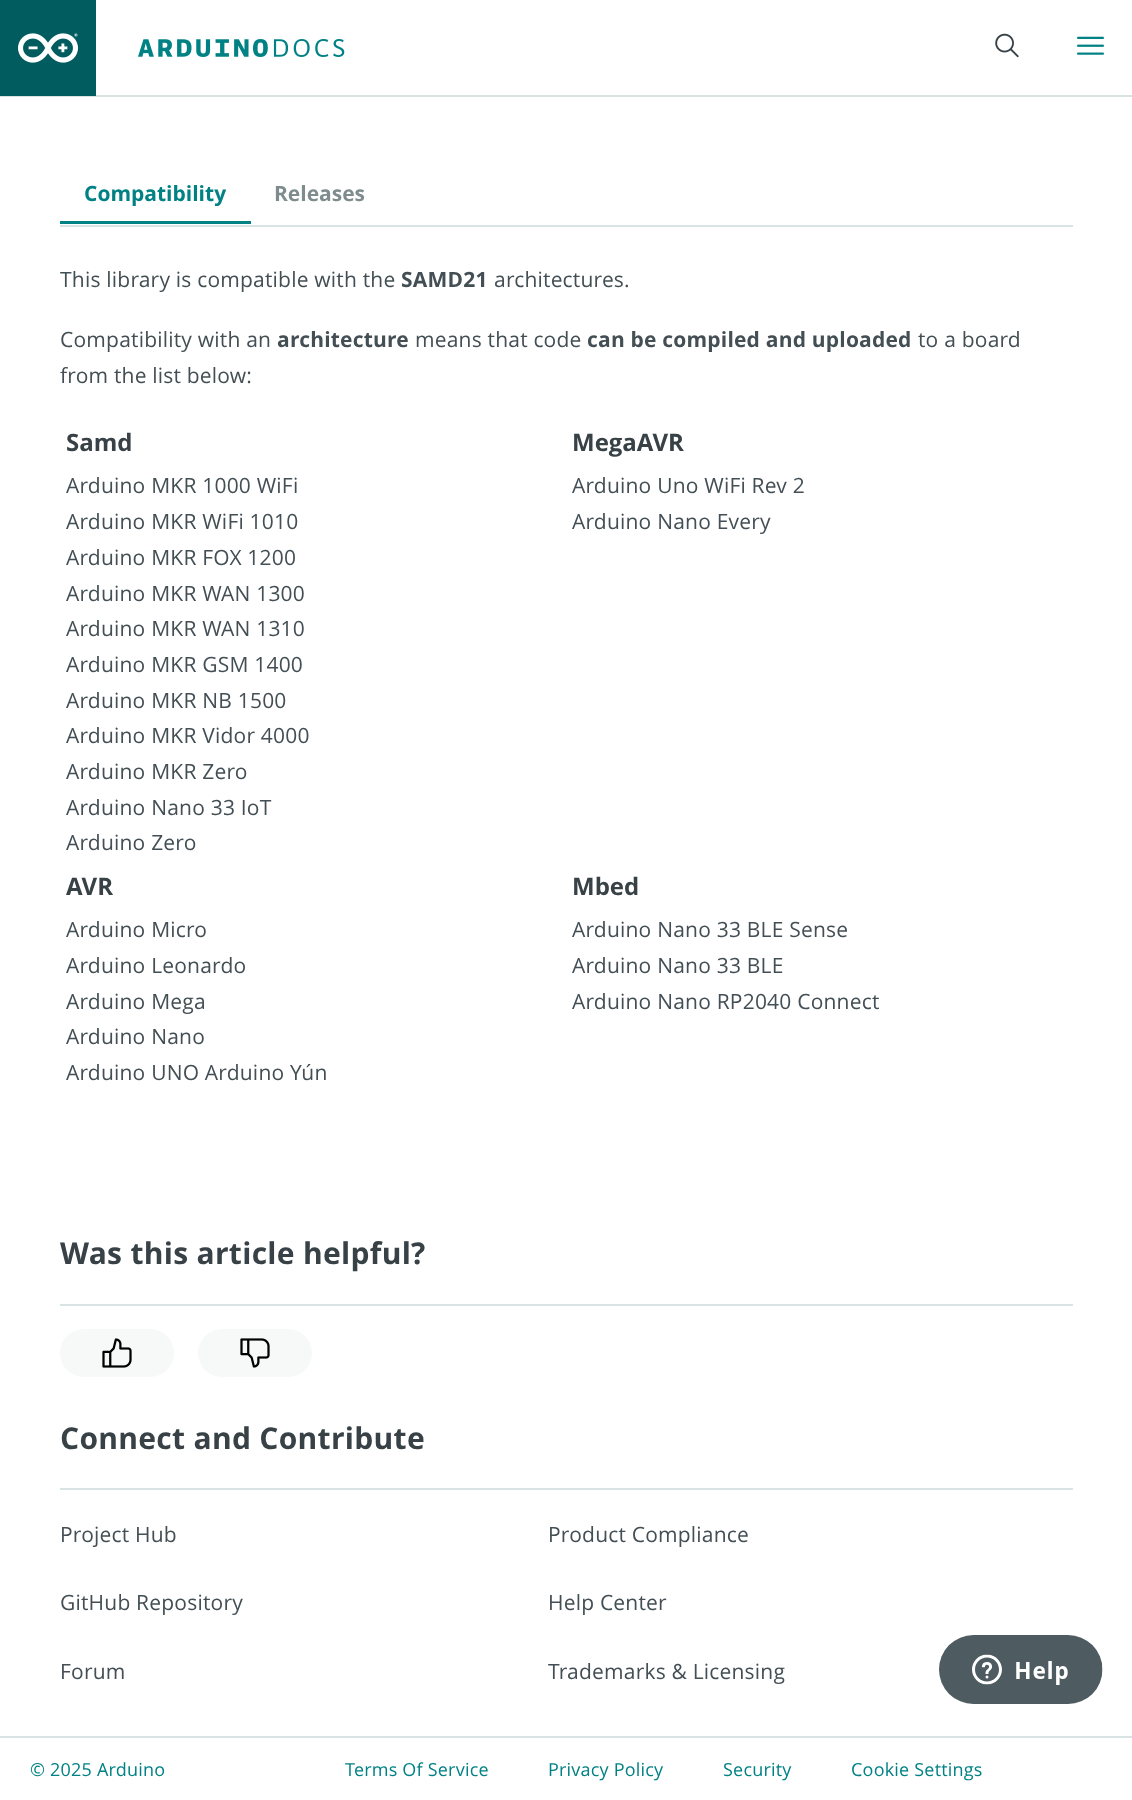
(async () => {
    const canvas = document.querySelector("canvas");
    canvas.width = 1132;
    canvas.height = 1800;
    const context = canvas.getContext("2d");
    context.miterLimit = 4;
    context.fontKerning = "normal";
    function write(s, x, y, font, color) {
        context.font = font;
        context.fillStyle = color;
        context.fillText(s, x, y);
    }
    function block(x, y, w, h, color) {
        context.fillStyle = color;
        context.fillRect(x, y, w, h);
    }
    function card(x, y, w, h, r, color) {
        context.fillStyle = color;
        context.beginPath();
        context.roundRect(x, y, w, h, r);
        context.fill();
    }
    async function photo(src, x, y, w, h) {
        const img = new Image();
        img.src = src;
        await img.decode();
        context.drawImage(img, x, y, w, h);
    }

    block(0, 0, 1132, 1800, "rgb(255, 255, 255)");
    block(0, 95, 1132, 2, "rgb(218, 227, 227)");
    block(0, 0, 96, 96, "rgb(0, 92, 95)");
    await photo("media/1.png", 18, 33, 60, 30);
    await photo("media/2.png", 138, 39, 207, 18);
    await photo("media/3.png", 995, 33, 24, 25);
    await photo("media/4.png", 1077, 36, 27, 19);
    block(60, 225, 1013, 2, "rgb(218, 227, 227)");
    block(60, 221, 191, 3, "rgb(0, 129, 132)");
    write("Compatibility", 84, 201, "bold 21px Open Sans", "rgb(0, 129, 132)");
    write("Releases", 274, 201, "bold 21px Open Sans", "rgb(127, 140, 141)");
    context.letterSpacing = "0.2px";
    write("This library is compatible with the", 60, 287, "21px Open Sans", "rgb(67, 79, 84)");
    write("SAMD21", 401, 287, "bold 21px Open Sans", "rgb(67, 79, 84)");
    write("architectures.", 494, 287, "21px Open Sans", "rgb(67, 79, 84)");
    write("Compatibility with an", 60, 347, "21px Open Sans", "rgb(67, 79, 84)");
    write("architecture", 277, 347, "bold 21px Open Sans", "rgb(67, 79, 84)");
    write("means that code", 415, 347, "21px Open Sans", "rgb(67, 79, 84)");
    write("can be compiled and uploaded", 587, 347, "bold 21px Open Sans", "rgb(67, 79, 84)");
    write("to a board", 918, 347, "21px Open Sans", "rgb(67, 79, 84)");
    write("from the list below:", 60, 383, "21px Open Sans", "rgb(67, 79, 84)");
    context.letterSpacing = "0px";
    write("Samd", 66, 451, "bold 24px Open Sans", "rgb(55, 65, 70)");
    context.letterSpacing = "0.2px";
    write("Arduino MKR 1000 WiFi", 66, 493, "21px Open Sans", "rgb(67, 79, 84)");
    write("Arduino MKR WiFi 1010", 66, 529, "21px Open Sans", "rgb(67, 79, 84)");
    write("Arduino MKR FOX 1200", 66, 565, "21px Open Sans", "rgb(67, 79, 84)");
    write("Arduino MKR WAN 1300", 66, 601, "21px Open Sans", "rgb(67, 79, 84)");
    write("Arduino MKR WAN 1310", 66, 636, "21px Open Sans", "rgb(67, 79, 84)");
    write("Arduino MKR GSM 1400", 66, 672, "21px Open Sans", "rgb(67, 79, 84)");
    write("Arduino MKR NB 1500", 66, 708, "21px Open Sans", "rgb(67, 79, 84)");
    write("Arduino MKR Vidor 4000", 66, 743, "21px Open Sans", "rgb(67, 79, 84)");
    write("Arduino MKR Zero", 66, 779, "21px Open Sans", "rgb(67, 79, 84)");
    write("Arduino Nano 33 IoT", 66, 815, "21px Open Sans", "rgb(67, 79, 84)");
    write("Arduino Zero", 66, 850, "21px Open Sans", "rgb(67, 79, 84)");
    context.letterSpacing = "0px";
    write("MegaAVR", 572, 451, "bold 24px Open Sans", "rgb(55, 65, 70)");
    context.letterSpacing = "0.2px";
    write("Arduino Uno WiFi Rev 2", 572, 493, "21px Open Sans", "rgb(67, 79, 84)");
    write("Arduino Nano Every", 572, 529, "21px Open Sans", "rgb(67, 79, 84)");
    context.letterSpacing = "0px";
    write("AVR", 66, 895, "bold 24px Open Sans", "rgb(55, 65, 70)");
    context.letterSpacing = "0.2px";
    write("Arduino Micro", 66, 937, "21px Open Sans", "rgb(67, 79, 84)");
    write("Arduino Leonardo", 66, 973, "21px Open Sans", "rgb(67, 79, 84)");
    write("Arduino Mega", 66, 1009, "21px Open Sans", "rgb(67, 79, 84)");
    write("Arduino Nano", 66, 1044, "21px Open Sans", "rgb(67, 79, 84)");
    write("Arduino UNO Arduino Yún", 66, 1080, "21px Open Sans", "rgb(67, 79, 84)");
    context.letterSpacing = "0px";
    write("Mbed", 572, 895, "bold 24px Open Sans", "rgb(55, 65, 70)");
    context.letterSpacing = "0.2px";
    write("Arduino Nano 33 BLE Sense", 572, 937, "21px Open Sans", "rgb(67, 79, 84)");
    write("Arduino Nano 33 BLE", 572, 973, "21px Open Sans", "rgb(67, 79, 84)");
    write("Arduino Nano RP2040 Connect", 572, 1009, "21px Open Sans", "rgb(67, 79, 84)");
    block(60, 1304, 1013, 2, "rgb(218, 227, 227)");
    context.letterSpacing = "0.3px";
    write("Was this article helpful?", 60, 1264, "bold 30px Open Sans", "rgb(55, 65, 70)");
    card(60, 1329, 114, 48, 24, "rgb(247, 249, 249)");
    await photo("media/5.png", 102, 1338, 30, 30);
    card(198, 1329, 114, 48, 24, "rgb(247, 249, 249)");
    await photo("media/6.png", 240, 1338, 30, 30);
    block(60, 1488, 1013, 2, "rgb(218, 227, 227)");
    write("Connect and Contribute", 60, 1449, "bold 30px Open Sans", "rgb(55, 65, 70)");
    context.letterSpacing = "0.2px";
    write("Project Hub", 60, 1542, "21px Open Sans", "rgb(67, 79, 84)");
    write("GitHub Repository", 60, 1610, "21px Open Sans", "rgb(67, 79, 84)");
    write("Forum", 60, 1679, "21px Open Sans", "rgb(67, 79, 84)");
    write("Product Compliance", 548, 1542, "21px Open Sans", "rgb(67, 79, 84)");
    write("Help Center", 548, 1610, "21px Open Sans", "rgb(67, 79, 84)");
    write("Trademarks & Licensing", 548, 1679, "21px Open Sans", "rgb(67, 79, 84)");
    block(0, 1736, 1132, 2, "rgb(218, 227, 227)");
    write("© 2025 Arduino", 30, 1776, "18px Open Sans", "rgb(0, 129, 132)");
    write("Terms Of Service", 345, 1776, "18px Open Sans", "rgb(0, 129, 132)");
    write("Privacy Policy", 548, 1776, "18px Open Sans", "rgb(0, 129, 132)");
    write("Security", 723, 1776, "18px Open Sans", "rgb(0, 129, 132)");
    write("Cookie Settings", 851, 1776, "18px Open Sans", "rgb(0, 129, 132)");
    await photo("media/7.png", 939, 1635, 164, 69);
})();
